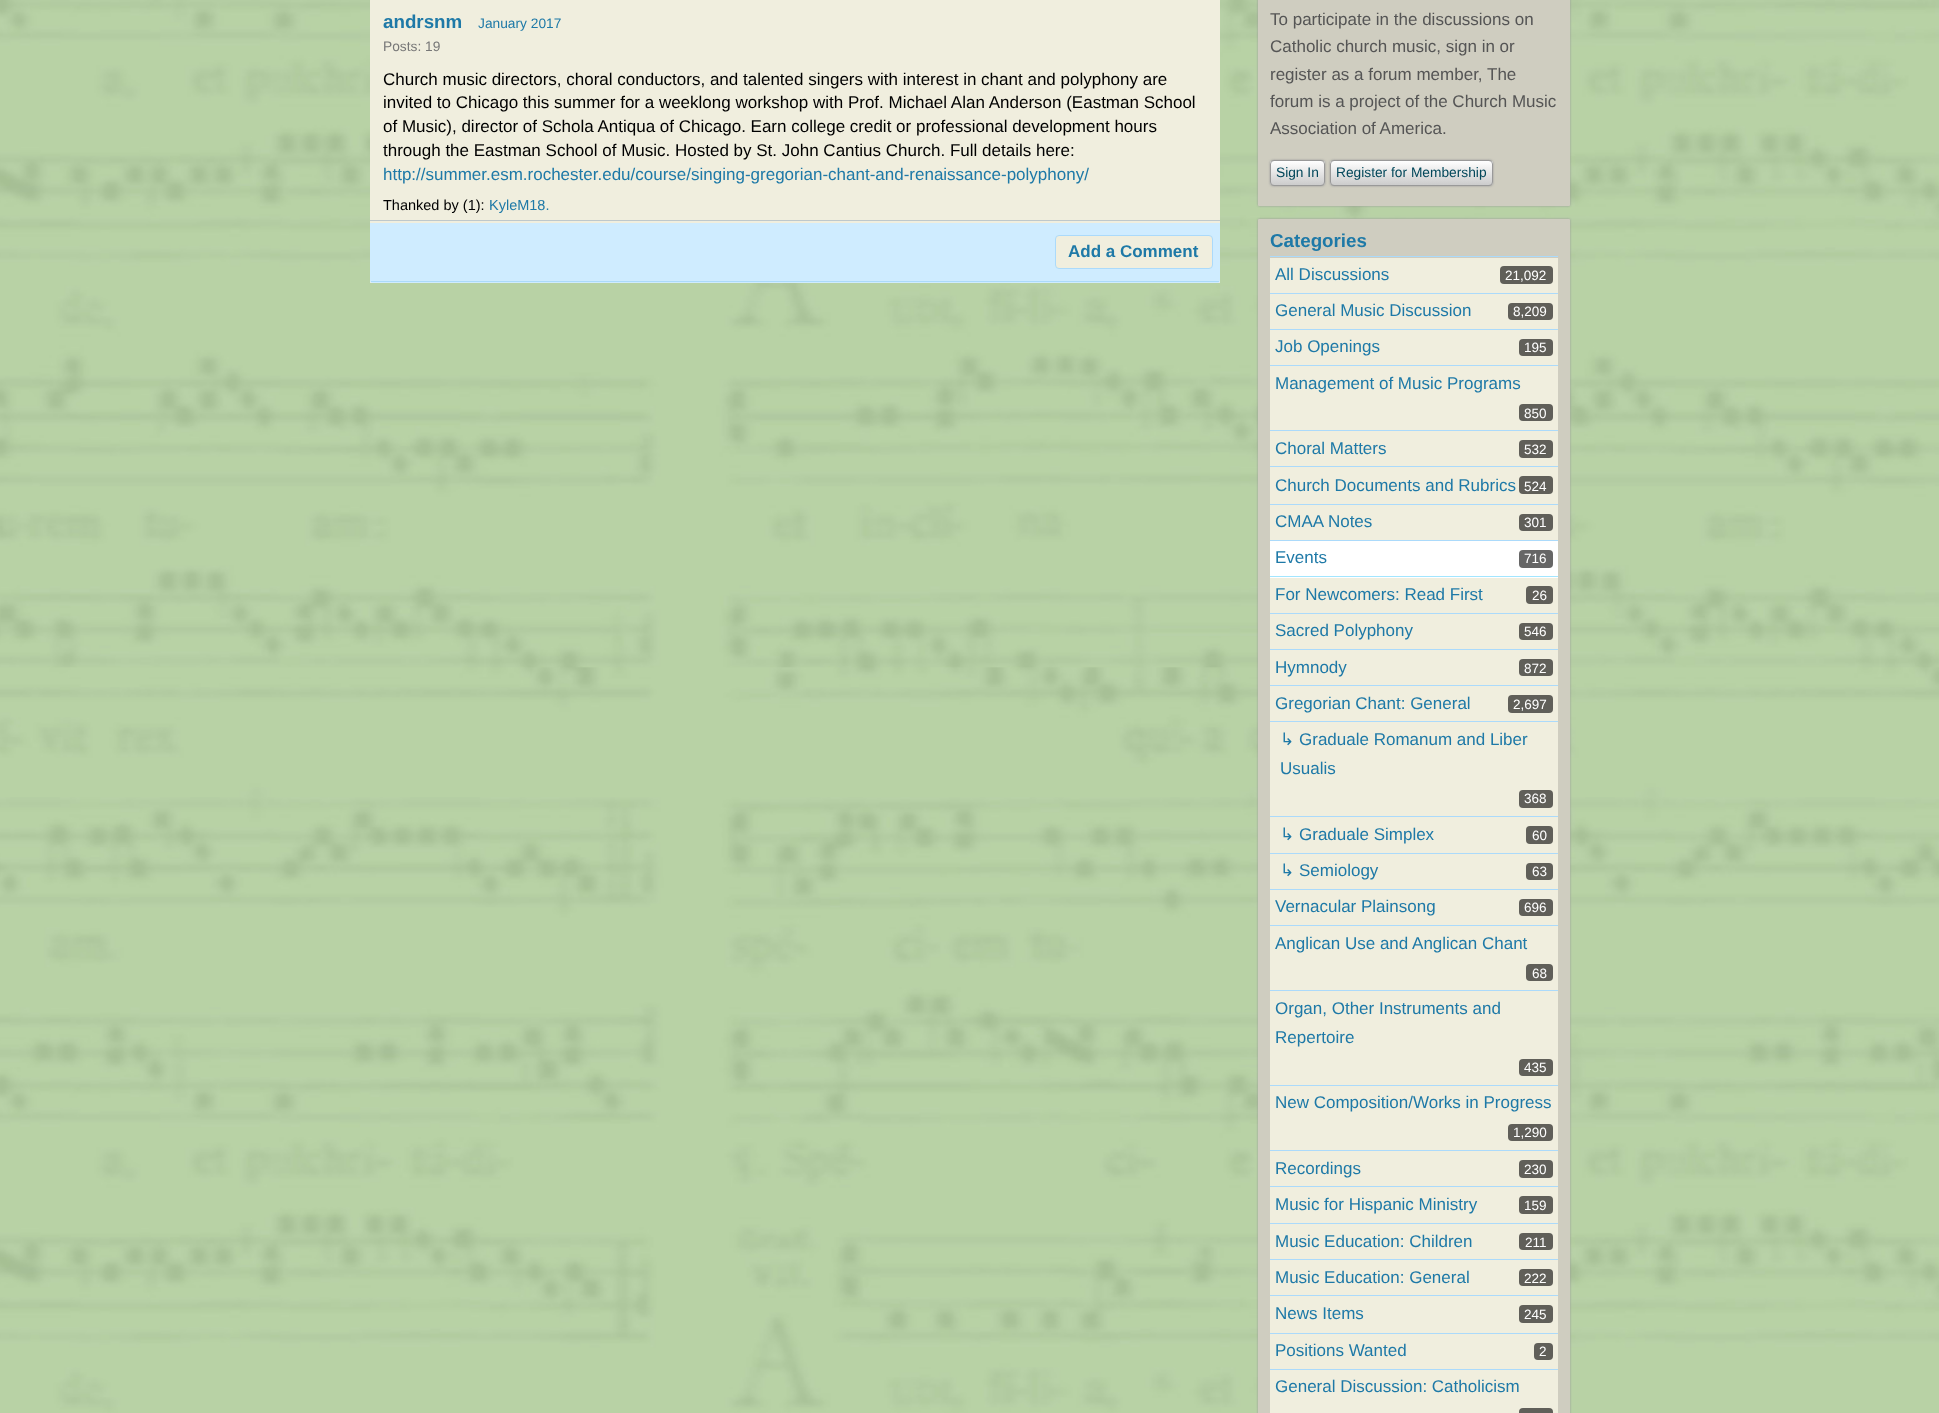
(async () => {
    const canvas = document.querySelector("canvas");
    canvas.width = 1939;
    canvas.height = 1413;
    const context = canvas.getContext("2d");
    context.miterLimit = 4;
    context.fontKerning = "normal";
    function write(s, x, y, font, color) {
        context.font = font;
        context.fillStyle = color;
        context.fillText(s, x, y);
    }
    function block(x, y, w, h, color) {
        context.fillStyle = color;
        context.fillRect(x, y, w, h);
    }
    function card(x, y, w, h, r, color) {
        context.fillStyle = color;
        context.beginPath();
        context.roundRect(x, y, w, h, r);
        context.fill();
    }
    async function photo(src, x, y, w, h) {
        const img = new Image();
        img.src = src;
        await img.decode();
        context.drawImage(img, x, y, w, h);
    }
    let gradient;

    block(0, 0, 1939, 1413, "rgb(255, 255, 255)");
    await photo("media/1.png", 0, 0, 1939, 1413);
    block(370, 0, 850, 283, "rgb(240, 238, 222)");
    block(370, 220, 850, 1, "rgb(190, 200, 204)");
    write("andrsnm", 383, 28, "bold 18.75px Liberation Sans", "rgb(30, 121, 167)");
    write("January 2017", 478, 28, "13.75px Liberation Sans", "rgb(30, 121, 167)");
    write("Posts: 19", 383, 51, "13.75px Liberation Sans", "rgb(119, 119, 119)");
    write("Church music directors, choral conductors, and talented singers with interest in chant and polyphony are", 383, 85, "17px Liberation Sans", "rgb(0, 0, 0)");
    write("invited to Chicago this summer for a weeklong workshop with Prof. Michael Alan Anderson (Eastman School", 383, 108, "17px Liberation Sans", "rgb(0, 0, 0)");
    write("of Music), director of Schola Antiqua of Chicago. Earn college credit or professional development hours", 383, 132, "17px Liberation Sans", "rgb(0, 0, 0)");
    write("through the Eastman School of Music. Hosted by St. John Cantius Church. Full details here:", 383, 156, "17px Liberation Sans", "rgb(0, 0, 0)");
    write("http://summer.esm.rochester.edu/course/singing-gregorian-chant-and-renaissance-polyphony/", 383, 180, "17px Liberation Sans", "rgb(30, 121, 167)");
    write("Thanked by (1):", 383, 210, "14.5px Liberation Sans", "rgb(0, 0, 0)");
    write("KyleM18.", 489, 210, "14.5px Liberation Sans", "rgb(30, 121, 167)");
    context.fillStyle = "rgb(207, 236, 255)";
    context.beginPath();
    context.roundRect(370, 223, 850, 60, [0, 0, 2.5, 2.5]);
    context.fill();
    block(371, 281, 848, 1, "rgb(171, 218, 251)");
    context.fillStyle = "rgb(240, 238, 222)";
    context.beginPath();
    context.roundRect(1055.5, 235.5, 157, 33, 3.5);
    context.fill();
    context.strokeStyle = "rgb(171, 218, 251)";
    context.stroke();
    write("Add a Comment", 1068, 257, "bold 17px Liberation Sans", "rgb(30, 121, 167)");
    context.fillStyle = "rgb(153, 153, 153)";
    context.filter = "blur(1px)";
    context.beginPath();
    context.roundRect(1258, -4, 312, 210, 1);
    context.fill();
    context.filter = "none";
    card(1258, -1, 312, 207, 1, "rgb(207, 205, 192)");
    write("To participate in the discussions on", 1270, 25, "17px Liberation Sans", "rgb(85, 85, 85)");
    write("Catholic church music, sign in or", 1270, 52, "17px Liberation Sans", "rgb(85, 85, 85)");
    write("register as a forum member, The", 1270, 80, "17px Liberation Sans", "rgb(85, 85, 85)");
    write("forum is a project of the Church Music", 1270, 107, "17px Liberation Sans", "rgb(85, 85, 85)");
    write("Association of America.", 1270, 134, "17px Liberation Sans", "rgb(85, 85, 85)");
    context.fillStyle = "rgb(153, 153, 153)";
    context.filter = "blur(1px)";
    context.beginPath();
    context.roundRect(1270, 160, 55, 26, 4);
    context.fill();
    context.filter = "none";
    context.save();
    context.beginPath();
    context.roundRect(1270, 160, 55, 26, 4);
    context.clip();
    gradient = context.createLinearGradient(1298, 185, 1298, 161);
    gradient.addColorStop(0, "rgb(204, 204, 204)");
    gradient.addColorStop(1, "rgb(255, 255, 255)");
    context.fillStyle = gradient;
    context.fillRect(1270, 161, 55, 24);
    context.restore();
    context.beginPath();
    context.roundRect(1270.5, 160.5, 54, 25, 3.5);
    context.strokeStyle = "rgb(153, 153, 153)";
    context.stroke();
    write("Sign In", 1276, 177, "13.75px Liberation Sans", "rgb(2, 71, 90)");
    context.fillStyle = "rgb(153, 153, 153)";
    context.filter = "blur(1px)";
    context.beginPath();
    context.roundRect(1330, 160, 163, 26, 4);
    context.fill();
    context.filter = "none";
    context.save();
    context.beginPath();
    context.roundRect(1330, 160, 163, 26, 4);
    context.clip();
    gradient = context.createLinearGradient(1411, 185, 1411, 161);
    gradient.addColorStop(0, "rgb(204, 204, 204)");
    gradient.addColorStop(1, "rgb(255, 255, 255)");
    context.fillStyle = gradient;
    context.fillRect(1330, 161, 163, 24);
    context.restore();
    context.beginPath();
    context.roundRect(1330.5, 160.5, 162, 25, 3.5);
    context.stroke();
    write("Register for Membership", 1336, 177, "13.75px Liberation Sans", "rgb(2, 71, 90)");
    context.fillStyle = "rgb(153, 153, 153)";
    context.filter = "blur(1px)";
    context.beginPath();
    context.roundRect(1258, 219, 312, 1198, 1);
    context.fill();
    context.filter = "none";
    card(1258, 219, 312, 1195, 1, "rgb(207, 205, 192)");
    write("Categories", 1270, 247, "bold 18.75px Liberation Sans", "rgb(30, 121, 167)");
    block(1270, 256, 288, 1, "rgb(171, 218, 251)");
    block(1270, 258, 288, 35, "rgb(240, 238, 222)");
    block(1270, 293, 288, 1, "rgb(171, 218, 251)");
    write("All Discussions", 1275, 280, "17px Liberation Sans", "rgb(30, 121, 167)");
    card(1500, 266, 53, 18, 4, "rgb(96, 95, 89)");
    write("21,092", 1505, 280, "13.5px Liberation Sans", "rgb(255, 255, 255)");
    block(1270, 294, 288, 35, "rgb(240, 238, 222)");
    block(1270, 329, 288, 1, "rgb(171, 218, 251)");
    write("General Music Discussion", 1275, 316, "17px Liberation Sans", "rgb(30, 121, 167)");
    card(1508, 303, 45, 17, 4, "rgb(96, 95, 89)");
    write("8,209", 1513, 316, "13.5px Liberation Sans", "rgb(255, 255, 255)");
    block(1270, 330, 288, 35, "rgb(240, 238, 222)");
    block(1270, 365, 288, 1, "rgb(171, 218, 251)");
    write("Job Openings", 1275, 352, "17px Liberation Sans", "rgb(30, 121, 167)");
    card(1519, 339, 34, 17, 4, "rgb(96, 95, 89)");
    write("195", 1524, 352, "13.5px Liberation Sans", "rgb(255, 255, 255)");
    block(1270, 366, 288, 64, "rgb(240, 238, 222)");
    block(1270, 430, 288, 1, "rgb(171, 218, 251)");
    write("Management of Music Programs", 1275, 389, "17px Liberation Sans", "rgb(30, 121, 167)");
    card(1519, 404, 34, 17, 4, "rgb(96, 95, 89)");
    write("850", 1524, 418, "13.5px Liberation Sans", "rgb(255, 255, 255)");
    block(1270, 431, 288, 73, "rgb(240, 238, 222)");
    block(1270, 466, 288, 1, "rgb(171, 218, 251)");
    write("Choral Matters", 1275, 454, "17px Liberation Sans", "rgb(30, 121, 167)");
    card(1519, 440, 34, 18, 4, "rgb(96, 95, 89)");
    write("532", 1524, 454, "13.5px Liberation Sans", "rgb(255, 255, 255)");
    block(1270, 504, 288, 1, "rgb(171, 218, 251)");
    write("Church Documents and Rubrics", 1275, 491, "17px Liberation Sans", "rgb(30, 121, 167)");
    card(1519, 476, 34, 18, 4, "rgb(96, 95, 89)");
    write("524", 1524, 491, "13.5px Liberation Sans", "rgb(255, 255, 255)");
    block(1270, 505, 288, 35, "rgb(240, 238, 222)");
    block(1270, 540, 288, 1, "rgb(171, 218, 251)");
    write("CMAA Notes", 1275, 527, "17px Liberation Sans", "rgb(30, 121, 167)");
    card(1519, 514, 34, 17, 4, "rgb(96, 95, 89)");
    write("301", 1524, 527, "13.5px Liberation Sans", "rgb(255, 255, 255)");
    block(1270, 541, 288, 37, "rgb(255, 255, 255)");
    block(1270, 576, 288, 1, "rgb(163, 230, 255)");
    write("Events", 1275, 563, "17px Liberation Sans", "rgb(30, 121, 167)");
    card(1519, 550, 34, 18, 4, "rgb(102, 102, 102)");
    write("716", 1524, 563, "13.5px Liberation Sans", "rgb(255, 255, 255)");
    block(1270, 578, 288, 35, "rgb(240, 238, 222)");
    block(1270, 613, 288, 1, "rgb(171, 218, 251)");
    write("For Newcomers: Read First", 1275, 600, "17px Liberation Sans", "rgb(30, 121, 167)");
    card(1526, 586, 27, 18, 4, "rgb(96, 95, 89)");
    write("26", 1532, 600, "13.5px Liberation Sans", "rgb(255, 255, 255)");
    block(1270, 614, 288, 35, "rgb(240, 238, 222)");
    block(1270, 649, 288, 1, "rgb(171, 218, 251)");
    write("Sacred Polyphony", 1275, 636, "17px Liberation Sans", "rgb(30, 121, 167)");
    card(1519, 623, 34, 17, 4, "rgb(96, 95, 89)");
    write("546", 1524, 636, "13.5px Liberation Sans", "rgb(255, 255, 255)");
    block(1270, 650, 288, 35, "rgb(240, 238, 222)");
    block(1270, 685, 288, 1, "rgb(171, 218, 251)");
    write("Hymnody", 1275, 673, "17px Liberation Sans", "rgb(30, 121, 167)");
    card(1519, 659, 34, 17, 4, "rgb(96, 95, 89)");
    write("872", 1524, 673, "13.5px Liberation Sans", "rgb(255, 255, 255)");
    block(1270, 686, 288, 167, "rgb(240, 238, 222)");
    block(1270, 721, 288, 1, "rgb(171, 218, 251)");
    write("Gregorian Chant: General", 1275, 709, "17px Liberation Sans", "rgb(30, 121, 167)");
    card(1508, 695, 45, 18, 4, "rgb(96, 95, 89)");
    write("2,697", 1513, 709, "13.5px Liberation Sans", "rgb(255, 255, 255)");
    block(1270, 816, 288, 1, "rgb(171, 218, 251)");
    write("↳", 1280, 745, "17px DejaVu Sans", "rgb(30, 121, 167)");
    write("Graduale Romanum and Liber", 1299, 745, "17px Liberation Sans", "rgb(30, 121, 167)");
    write("Usualis", 1280, 774, "17px Liberation Sans", "rgb(30, 121, 167)");
    card(1519, 790, 34, 18, 4, "rgb(96, 95, 89)");
    write("368", 1524, 803, "13.5px Liberation Sans", "rgb(255, 255, 255)");
    block(1270, 853, 288, 1, "rgb(171, 218, 251)");
    write("↳", 1280, 840, "17px DejaVu Sans", "rgb(30, 121, 167)");
    write("Graduale Simplex", 1299, 840, "17px Liberation Sans", "rgb(30, 121, 167)");
    card(1526, 826, 27, 18, 4, "rgb(96, 95, 89)");
    write("60", 1532, 840, "13.5px Liberation Sans", "rgb(255, 255, 255)");
    block(1270, 854, 288, 35, "rgb(240, 238, 222)");
    block(1270, 889, 288, 1, "rgb(171, 218, 251)");
    write("↳", 1280, 876, "17px DejaVu Sans", "rgb(30, 121, 167)");
    write("Semiology", 1299, 876, "17px Liberation Sans", "rgb(30, 121, 167)");
    card(1526, 863, 27, 17, 4, "rgb(96, 95, 89)");
    write("63", 1532, 876, "13.5px Liberation Sans", "rgb(255, 255, 255)");
    block(1270, 890, 288, 35, "rgb(240, 238, 222)");
    block(1270, 925, 288, 1, "rgb(171, 218, 251)");
    write("Vernacular Plainsong", 1275, 912, "17px Liberation Sans", "rgb(30, 121, 167)");
    card(1519, 899, 34, 17, 4, "rgb(96, 95, 89)");
    write("696", 1524, 912, "13.5px Liberation Sans", "rgb(255, 255, 255)");
    block(1270, 926, 288, 64, "rgb(240, 238, 222)");
    block(1270, 990, 288, 1, "rgb(171, 218, 251)");
    write("Anglican Use and Anglican Chant", 1275, 949, "17px Liberation Sans", "rgb(30, 121, 167)");
    card(1526, 964, 27, 17, 4, "rgb(96, 95, 89)");
    write("68", 1532, 978, "13.5px Liberation Sans", "rgb(255, 255, 255)");
    block(1270, 991, 288, 94, "rgb(240, 238, 222)");
    block(1270, 1085, 288, 1, "rgb(171, 218, 251)");
    write("Organ, Other Instruments and", 1275, 1014, "17px Liberation Sans", "rgb(30, 121, 167)");
    write("Repertoire", 1275, 1043, "17px Liberation Sans", "rgb(30, 121, 167)");
    card(1519, 1059, 34, 17, 4, "rgb(96, 95, 89)");
    write("435", 1524, 1072, "13.5px Liberation Sans", "rgb(255, 255, 255)");
    block(1270, 1086, 288, 64, "rgb(240, 238, 222)");
    block(1270, 1150, 288, 1, "rgb(171, 218, 251)");
    write("New Composition/Works in Progress", 1275, 1108, "17px Liberation Sans", "rgb(30, 121, 167)");
    card(1508, 1124, 45, 17, 4, "rgb(96, 95, 89)");
    write("1,290", 1513, 1137, "13.5px Liberation Sans", "rgb(255, 255, 255)");
    block(1270, 1151, 288, 72, "rgb(240, 238, 222)");
    block(1270, 1186, 288, 1, "rgb(171, 218, 251)");
    write("Recordings", 1275, 1174, "17px Liberation Sans", "rgb(30, 121, 167)");
    card(1519, 1160, 34, 18, 4, "rgb(96, 95, 89)");
    write("230", 1524, 1174, "13.5px Liberation Sans", "rgb(255, 255, 255)");
    block(1270, 1223, 288, 1, "rgb(171, 218, 251)");
    write("Music for Hispanic Ministry", 1275, 1210, "17px Liberation Sans", "rgb(30, 121, 167)");
    card(1519, 1196, 34, 18, 4, "rgb(96, 95, 89)");
    write("159", 1524, 1210, "13.5px Liberation Sans", "rgb(255, 255, 255)");
    block(1270, 1224, 288, 35, "rgb(240, 238, 222)");
    block(1270, 1259, 288, 1, "rgb(171, 218, 251)");
    write("Music Education: Children", 1275, 1247, "17px Liberation Sans", "rgb(30, 121, 167)");
    card(1519, 1233, 34, 17, 4, "rgb(96, 95, 89)");
    write("211", 1525, 1247, "13.5px Liberation Sans", "rgb(255, 255, 255)");
    block(1270, 1260, 288, 35, "rgb(240, 238, 222)");
    block(1270, 1295, 288, 1, "rgb(171, 218, 251)");
    write("Music Education: General", 1275, 1283, "17px Liberation Sans", "rgb(30, 121, 167)");
    card(1519, 1269, 34, 17, 4, "rgb(96, 95, 89)");
    write("222", 1524, 1283, "13.5px Liberation Sans", "rgb(255, 255, 255)");
    block(1270, 1296, 288, 37, "rgb(240, 238, 222)");
    block(1270, 1333, 288, 1, "rgb(171, 218, 251)");
    write("News Items", 1275, 1319, "17px Liberation Sans", "rgb(30, 121, 167)");
    card(1519, 1305, 34, 18, 4, "rgb(96, 95, 89)");
    write("245", 1524, 1319, "13.5px Liberation Sans", "rgb(255, 255, 255)");
    block(1270, 1334, 288, 35, "rgb(240, 238, 222)");
    block(1270, 1369, 288, 1, "rgb(171, 218, 251)");
    write("Positions Wanted", 1275, 1356, "17px Liberation Sans", "rgb(30, 121, 167)");
    card(1534, 1343, 19, 17, 4, "rgb(96, 95, 89)");
    write("2", 1539, 1356, "13.5px Liberation Sans", "rgb(255, 255, 255)");
    block(1270, 1370, 288, 43, "rgb(240, 238, 222)");
    write("General Discussion: Catholicism", 1275, 1392, "17px Liberation Sans", "rgb(30, 121, 167)");
    card(1519, 1408, 34, 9, 4, "rgb(96, 95, 89)");
})();
